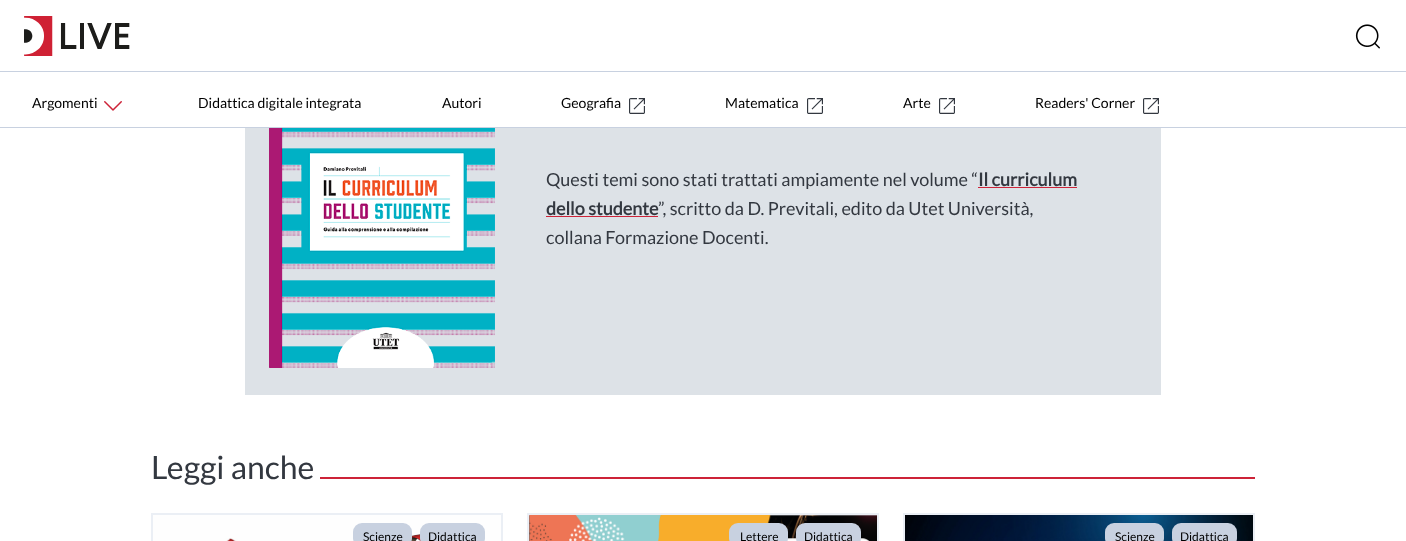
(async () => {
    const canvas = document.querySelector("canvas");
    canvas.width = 1406;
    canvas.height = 541;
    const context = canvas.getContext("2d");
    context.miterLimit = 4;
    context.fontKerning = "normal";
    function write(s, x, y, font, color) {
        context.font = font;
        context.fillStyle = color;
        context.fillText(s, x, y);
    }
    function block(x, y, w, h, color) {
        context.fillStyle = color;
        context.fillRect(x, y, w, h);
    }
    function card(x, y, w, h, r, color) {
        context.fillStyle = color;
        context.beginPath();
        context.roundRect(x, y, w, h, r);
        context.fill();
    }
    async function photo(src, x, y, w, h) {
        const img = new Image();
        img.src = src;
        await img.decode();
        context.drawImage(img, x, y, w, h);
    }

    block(0, 0, 1406, 541, "rgb(255, 255, 255)");
    block(0, 71, 1406, 1, "rgb(200, 209, 224)");
    await photo("media/1.png", 24, 16, 106, 40);
    await photo("media/2.png", 1355, 24, 25, 25);
    block(0, 127, 1406, 1, "rgb(200, 209, 224)");
    write("Argomenti", 32, 108, "14px Lato", "rgb(0, 0, 0)");
    await photo("media/3.png", 104, 101, 18, 10);
    write("Didattica digitale integrata", 198, 108, "14px Lato", "rgb(0, 0, 0)");
    write("Autori", 442, 108, "14px Lato", "rgb(0, 0, 0)");
    write("Geografia", 561, 108, "14px Lato", "rgb(0, 0, 0)");
    write("(", 629, 113, "16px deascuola", "rgb(51, 56, 64)");
    write("Matematica", 725, 108, "14px Lato", "rgb(0, 0, 0)");
    write("(", 807, 113, "16px deascuola", "rgb(51, 56, 64)");
    write("Arte", 903, 108, "14px Lato", "rgb(0, 0, 0)");
    write("(", 939, 113, "16px deascuola", "rgb(51, 56, 64)");
    write("Readers' Corner", 1035, 108, "14px Lato", "rgb(0, 0, 0)");
    write("(", 1143, 113, "16px deascuola", "rgb(51, 56, 64)");
    block(245, 128, 916, 267, "rgb(221, 226, 231)");
    await photo("media/4.png", 269, 128, 226, 240);
    write("Questi temi sono stati trattati ampiamente nel volume “", 546, 186, "18px Lato", "rgb(51, 56, 64)");
    write("Il curriculum", 978, 186, "bold 18px Lato", "rgb(51, 56, 64)");
    block(978, 187, 99, 1, "rgb(205, 35, 56)");
    write("dello studente", 546, 215, "bold 18px Lato", "rgb(51, 56, 64)");
    block(546, 216, 112, 1, "rgb(205, 35, 56)");
    write("”, scritto da D. Previtali, edito da Utet Università,", 658, 215, "18px Lato", "rgb(51, 56, 64)");
    write("collana Formazione Docenti.", 546, 244, "18px Lato", "rgb(51, 56, 64)");
    write("Leggi anche", 151, 479, "32px Lato", "rgb(51, 56, 64)");
    block(320, 477, 935, 2, "rgb(205, 35, 56)");
    await photo("media/5.png", 153, 515, 348, 26);
    context.strokeStyle = "rgb(235, 239, 245)";
    context.lineWidth = 2;
    context.strokeRect(152, 514, 350, 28);
    card(353, 523, 59, 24, 9, "rgb(200, 209, 224)");
    write("Scienze", 363, 541, "12px Lato", "rgb(0, 0, 0)");
    card(420, 523, 65, 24, 9, "rgb(200, 209, 224)");
    write("Didattica", 428, 541, "12px Lato", "rgb(0, 0, 0)");
    block(529, 515, 348, 26, "rgb(235, 239, 245)");
    await photo("media/6.png", 529, 515, 348, 26);
    context.strokeRect(528, 514, 350, 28);
    card(729, 523, 59, 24, 9, "rgb(200, 209, 224)");
    write("Lettere", 740, 541, "12px Lato", "rgb(0, 0, 0)");
    card(796, 523, 65, 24, 9, "rgb(200, 209, 224)");
    write("Didattica", 804, 541, "12px Lato", "rgb(0, 0, 0)");
    await photo("media/7.png", 905, 515, 348, 26);
    context.strokeRect(904, 514, 350, 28);
    card(1105, 523, 59, 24, 9, "rgb(200, 209, 224)");
    write("Scienze", 1115, 541, "12px Lato", "rgb(0, 0, 0)");
    card(1172, 523, 65, 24, 9, "rgb(200, 209, 224)");
    write("Didattica", 1180, 541, "12px Lato", "rgb(0, 0, 0)");
})();
